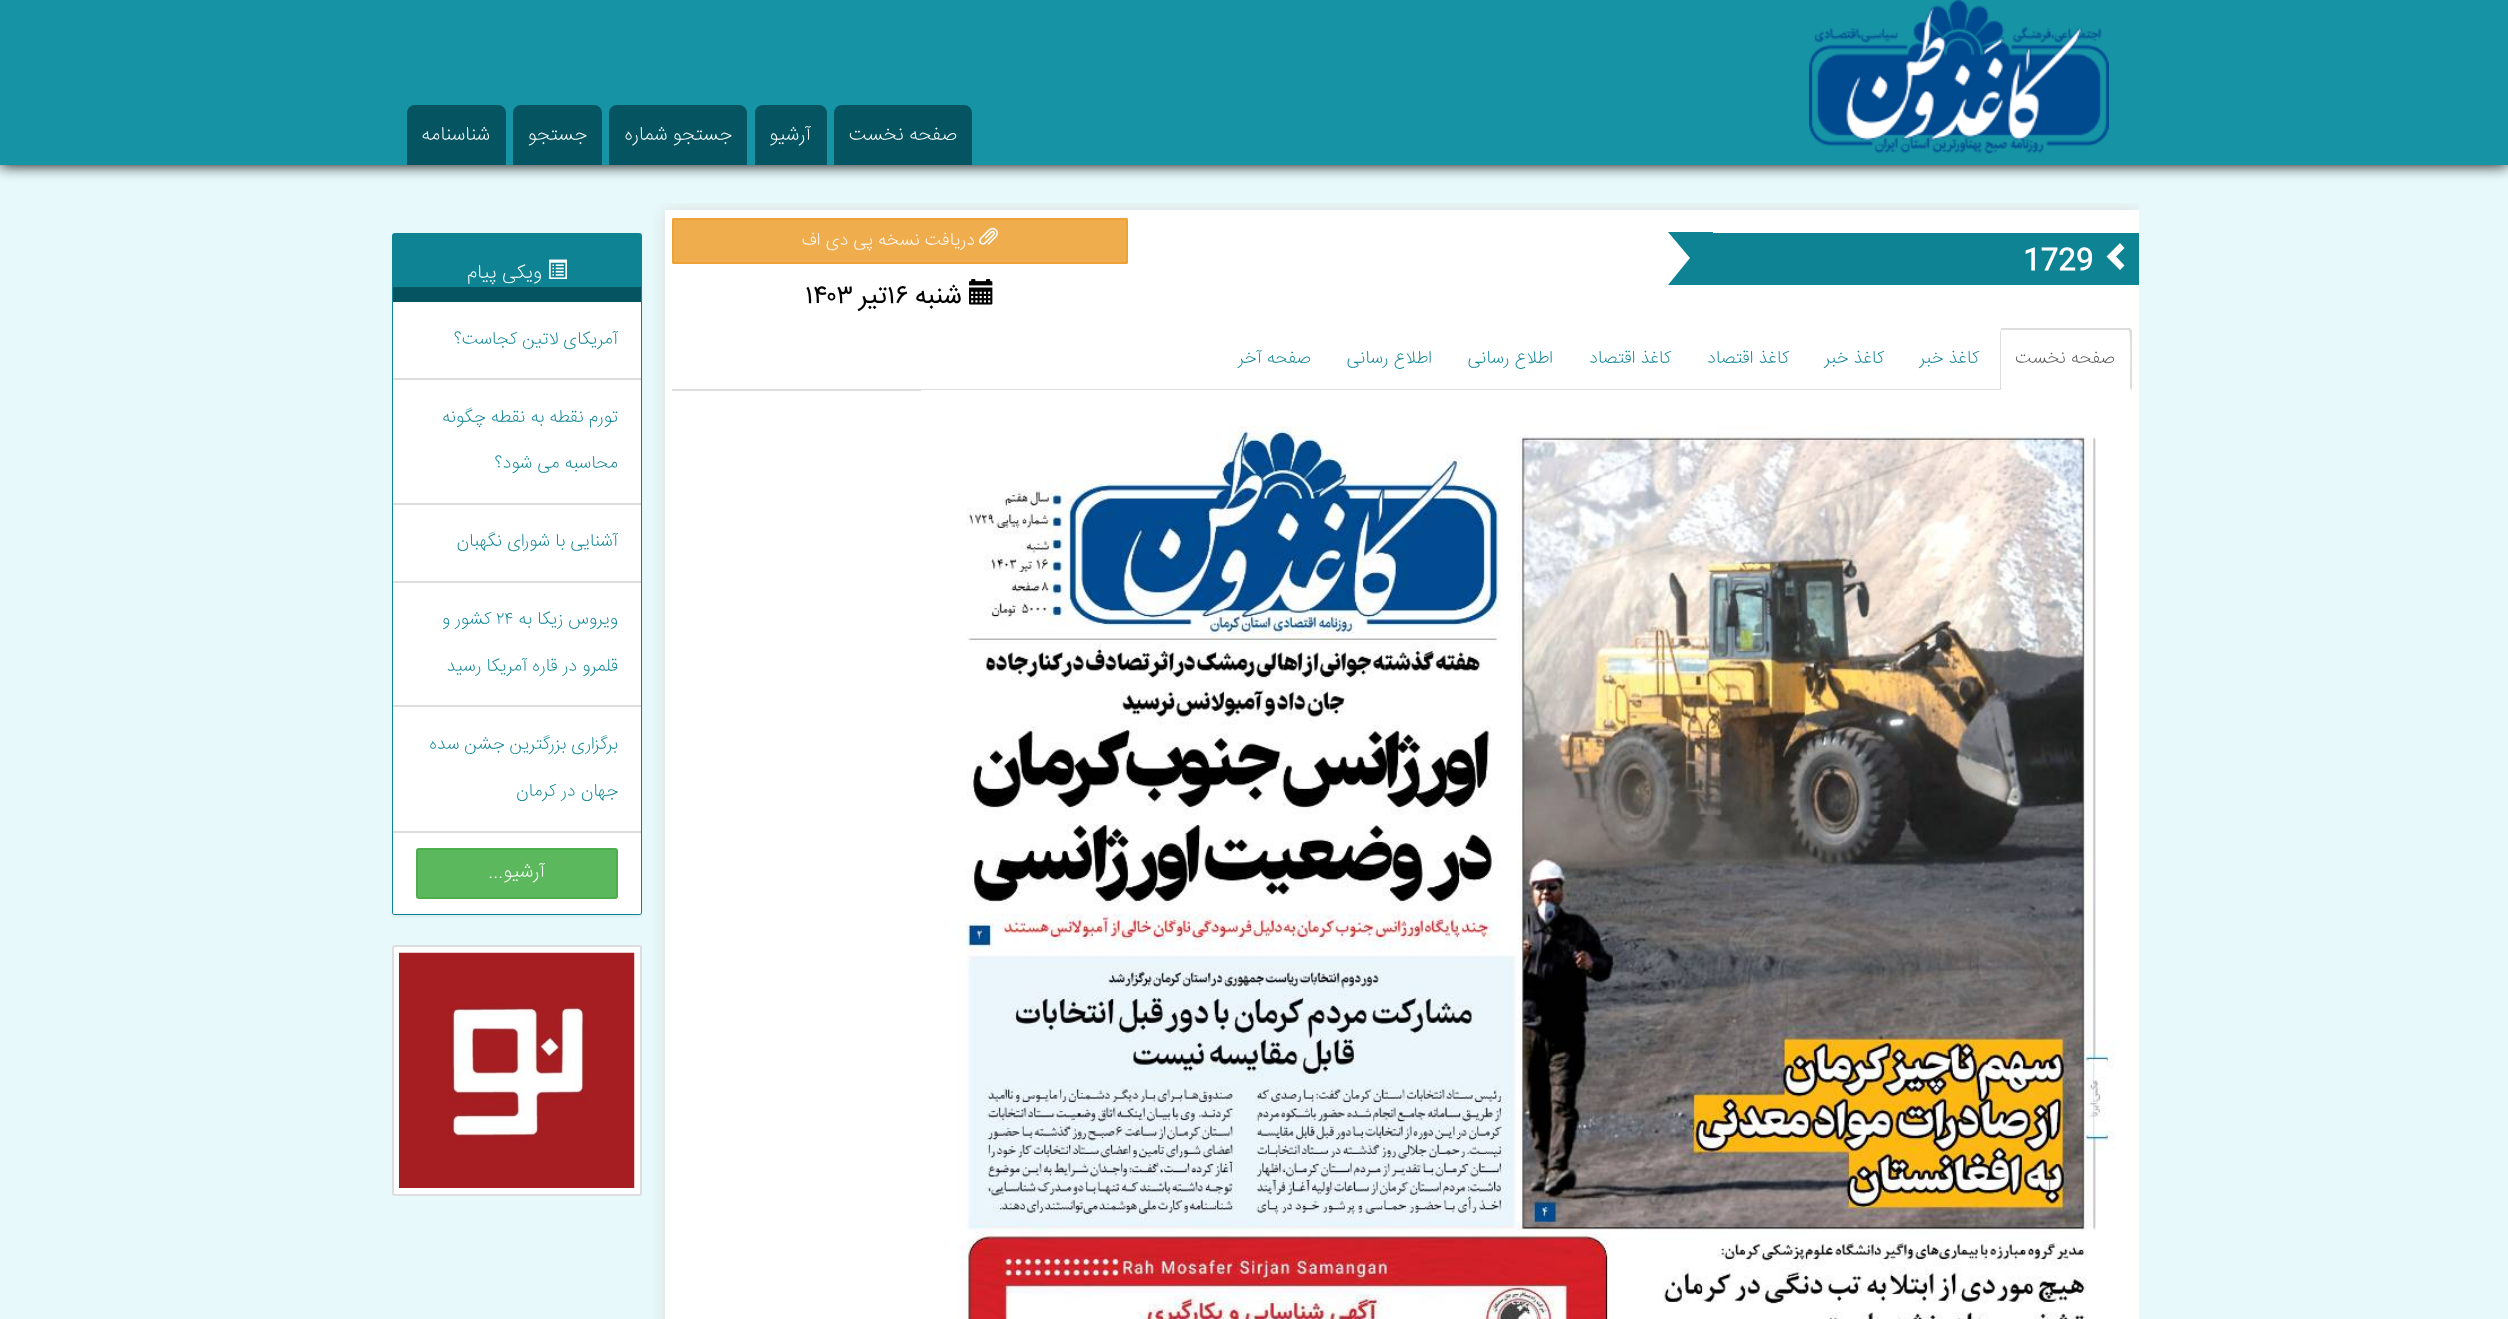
(async () => {
    const canvas = document.querySelector("canvas");
    canvas.width = 2508;
    canvas.height = 1319;
    const context = canvas.getContext("2d");
    context.miterLimit = 4;
    context.fontKerning = "normal";
    function write(s, x, y, font, color) {
        context.font = font;
        context.fillStyle = color;
        context.fillText(s, x, y);
    }
    function block(x, y, w, h, color) {
        context.fillStyle = color;
        context.fillRect(x, y, w, h);
    }
    async function photo(src, x, y, w, h) {
        const img = new Image();
        img.src = src;
        await img.decode();
        context.drawImage(img, x, y, w, h);
    }

    block(0, 0, 2508, 1319, "rgb(231, 249, 251)");
    context.fillStyle = "rgb(0, 0, 0)";
    context.filter = "blur(7.5px)";
    context.beginPath();
    context.rect(0, 0, 2508, 165);
    context.fill();
    context.filter = "none";
    block(0, 0, 2508, 165, "rgb(22, 147, 165)");
    await photo("media/1.png", 1809, 0, 300, 154);
    context.fillStyle = "rgb(4, 85, 97)";
    context.beginPath();
    context.roundRect(834, 105, 138, 60, [8, 8, 0, 0]);
    context.fill();
    context.direction = "rtl";
    write("صفحه نخست", 957, 140, "200 19.5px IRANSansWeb", "rgb(255, 255, 255)");
    context.fillStyle = "rgb(4, 85, 97)";
    context.beginPath();
    context.roundRect(755, 105, 72, 60, [8, 8, 0, 0]);
    context.fill();
    write("آرشیو", 811, 140, "200 19.5px IRANSansWeb", "rgb(255, 255, 255)");
    context.fillStyle = "rgb(4, 85, 97)";
    context.beginPath();
    context.roundRect(609, 105, 138, 60, [8, 8, 0, 0]);
    context.fill();
    write("جستجو شماره", 732, 140, "200 19.5px IRANSansWeb", "rgb(255, 255, 255)");
    context.fillStyle = "rgb(4, 85, 97)";
    context.beginPath();
    context.roundRect(513, 105, 89, 60, [8, 8, 0, 0]);
    context.fill();
    write("جستجو", 587, 140, "200 19.5px IRANSansWeb", "rgb(255, 255, 255)");
    context.fillStyle = "rgb(4, 85, 97)";
    context.beginPath();
    context.roundRect(407, 105, 99, 60, [8, 8, 0, 0]);
    context.fill();
    write("شناسنامه", 490, 140, "200 19.5px IRANSansWeb", "rgb(255, 255, 255)");
    context.save();
    context.beginPath();
    context.rect(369, 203, 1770, 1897);
    context.clip();
    context.fillStyle = "rgb(221, 221, 221)";
    context.filter = "blur(7.5px)";
    context.beginPath();
    context.rect(665, 210, 1474, 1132);
    context.fill();
    context.filter = "none";
    context.restore();
    block(665, 210, 1474, 1109, "rgb(255, 255, 255)");
    block(1713, 233, 426, 52, "rgb(14, 131, 148)");
    context.fillStyle = "rgb(255, 255, 255)";
    context.beginPath();
    context.moveTo(2124.5, 248);
    context.lineTo(2116, 256.5);
    context.lineTo(2124.5, 265.5);
    context.lineTo(2120, 270);
    context.lineTo(2106.5, 256.5);
    context.lineTo(2120, 243);
    context.closePath();
    context.fill();
    context.direction = "ltr";
    write("1729", 2023, 269, "bold 29px IRANSansWeb", "rgb(255, 255, 255)");
    context.fillStyle = "rgb(14, 131, 148)";
    context.beginPath();
    context.moveTo(1668, 232);
    context.lineTo(1713, 232);
    context.lineTo(1713, 258);
    context.lineTo(1690, 258);
    context.closePath();
    context.moveTo(1713, 285);
    context.lineTo(1668, 285);
    context.lineTo(1690, 258);
    context.lineTo(1713, 258);
    context.closePath();
    context.fill();
    context.fillStyle = "rgb(240, 173, 78)";
    context.beginPath();
    context.roundRect(673, 219, 454, 44, 0.5);
    context.fill();
    context.strokeStyle = "rgb(238, 162, 54)";
    context.lineWidth = 2;
    context.stroke();
    await photo("media/2.png", 979, 227, 19, 18);
    context.direction = "rtl";
    write("دریافت نسخه پی دی اف", 975, 245, "200 18px IRANSansWeb", "rgb(255, 255, 255)");
    await photo("media/3.png", 969, 279, 24, 26);
    write("شنبه", 962, 303, "26px IRANSansWeb", "rgb(0, 0, 0)");
    context.direction = "ltr";
    write("۱۶", 887, 303, "26px IRANSansWeb", "rgb(0, 0, 0)");
    context.direction = "rtl";
    write("تیر", 887, 303, "26px IRANSansWeb", "rgb(0, 0, 0)");
    context.direction = "ltr";
    write("۱۴۰۳", 805, 303, "26px IRANSansWeb", "rgb(0, 0, 0)");
    block(672, 389, 1460, 2, "rgb(221, 221, 221)");
    context.fillStyle = "rgb(255, 255, 255)";
    context.beginPath();
    context.roundRect(2000, 329, 132, 61, [3, 3, 0, 0]);
    context.fill();
    context.fillStyle = "rgb(221, 221, 221)";
    context.beginPath();
    context.moveTo(2002, 330);
    context.lineTo(2001, 330);
    context.lineTo(2001, 328);
    context.lineTo(2130, 328);
    context.lineTo(2131, 329);
    context.lineTo(2129, 331);
    context.lineTo(2128, 330);
    context.closePath();
    context.fill();
    context.beginPath();
    context.moveTo(2132, 330);
    context.lineTo(2132, 390);
    context.lineTo(2130, 388);
    context.bezierCurveTo(2130, 382, 2131, 332, 2129, 331);
    context.lineTo(2131, 329);
    context.closePath();
    context.fill();
    context.beginPath();
    context.moveTo(2000, 390);
    context.lineTo(2000, 332);
    context.lineTo(2001, 330);
    context.lineTo(2002, 330);
    context.lineTo(2001, 331);
    context.lineTo(2001, 388);
    context.lineTo(2002, 388);
    context.closePath();
    context.fill();
    context.direction = "rtl";
    write("صفحه نخست", 2115, 363, "200 18px IRANSansWeb", "rgb(85, 85, 85)");
    write("کاغذ خبر", 1979, 363, "200 18px IRANSansWeb", "rgb(14, 131, 148)");
    write("کاغذ خبر", 1884, 363, "200 18px IRANSansWeb", "rgb(14, 131, 148)");
    write("کاغذ اقتصاد", 1789, 363, "200 18px IRANSansWeb", "rgb(14, 131, 148)");
    write("کاغذ اقتصاد", 1671, 363, "200 18px IRANSansWeb", "rgb(14, 131, 148)");
    write("اطلاع رسانی", 1553, 363, "200 18px IRANSansWeb", "rgb(14, 131, 148)");
    write("اطلاع رسانی", 1432, 363, "200 18px IRANSansWeb", "rgb(14, 131, 148)");
    write("صفحه آخر", 1311, 363, "200 18px IRANSansWeb", "rgb(14, 131, 148)");
    await photo("media/4.png", 921, 390, 1211, 929);
    context.fillStyle = "rgba(0, 0, 0, 0.05)";
    context.filter = "blur(1px)";
    context.beginPath();
    context.roundRect(392, 234, 250, 683, 3);
    context.fill();
    context.filter = "none";
    context.beginPath();
    context.roundRect(393, 234, 248, 680, 2);
    context.strokeStyle = "rgb(14, 131, 148)";
    context.stroke();
    context.fillStyle = "rgb(14, 131, 148)";
    context.beginPath();
    context.roundRect(393, 234, 248, 68, [1.5, 1.5, 0, 0]);
    context.fill();
    block(393, 287, 248, 15, "rgb(4, 85, 97)");
    await photo("media/5.png", 549, 259, 18, 20);
    write("ویکی پیام", 542, 278, "200 19.5px IRANSansWeb", "rgb(255, 255, 255)");
    block(393, 302, 248, 76, "rgb(255, 255, 255)");
    block(393, 378, 248, 2, "rgb(221, 221, 221)");
    write("آمریکای لاتین کجاست؟", 618, 344, "200 18px IRANSansWeb", "rgb(14, 131, 148)");
    block(393, 380, 248, 123, "rgb(255, 255, 255)");
    write("تورم نقطه به نقطه چگونه", 618, 422, "200 18px IRANSansWeb", "rgb(14, 131, 148)");
    write("محاسبه می شود؟", 618, 468, "200 18px IRANSansWeb", "rgb(14, 131, 148)");
    block(393, 505, 248, 76, "rgb(255, 255, 255)");
    block(393, 503, 248, 2, "rgb(221, 221, 221)");
    write("آشنایی با شورای نگهبان", 618, 546, "200 18px IRANSansWeb", "rgb(14, 131, 148)");
    block(393, 583, 248, 122, "rgb(255, 255, 255)");
    block(393, 581, 248, 2, "rgb(221, 221, 221)");
    block(393, 705, 248, 2, "rgb(221, 221, 221)");
    write("ویروس زیکا به", 618, 624, "200 18px IRANSansWeb", "rgb(14, 131, 148)");
    context.direction = "ltr";
    write("۲۴", 496, 624, "200 18px IRANSansWeb", "rgb(14, 131, 148)");
    context.direction = "rtl";
    write("کشور و", 491, 624, "200 18px IRANSansWeb", "rgb(14, 131, 148)");
    write("قلمرو در قاره آمریکا رسید", 618, 671, "200 18px IRANSansWeb", "rgb(14, 131, 148)");
    block(393, 707, 248, 124, "rgb(255, 255, 255)");
    write("برگزاری بزرگترین جشن سده", 618, 749, "200 18px IRANSansWeb", "rgb(14, 131, 148)");
    write("جهان در کرمان", 618, 796, "200 18px IRANSansWeb", "rgb(14, 131, 148)");
    context.fillStyle = "rgb(255, 255, 255)";
    context.beginPath();
    context.roundRect(393, 831, 248, 83, [0, 0, 1.5, 1.5]);
    context.fill();
    block(393, 831, 248, 2, "rgb(221, 221, 221)");
    context.fillStyle = "rgb(92, 184, 92)";
    context.beginPath();
    context.roundRect(417, 849, 200, 49, 2);
    context.fill();
    context.strokeStyle = "rgb(76, 174, 76)";
    context.stroke();
    write("آرشیو...", 545, 877, "200 19.5px IRANSansWeb", "rgb(255, 255, 255)");
    context.beginPath();
    context.roundRect(393, 946, 248, 249, 2);
    context.fill();
    context.strokeStyle = "rgb(221, 221, 221)";
    context.stroke();
    await photo("media/6.png", 399, 952, 236, 236);
})();
